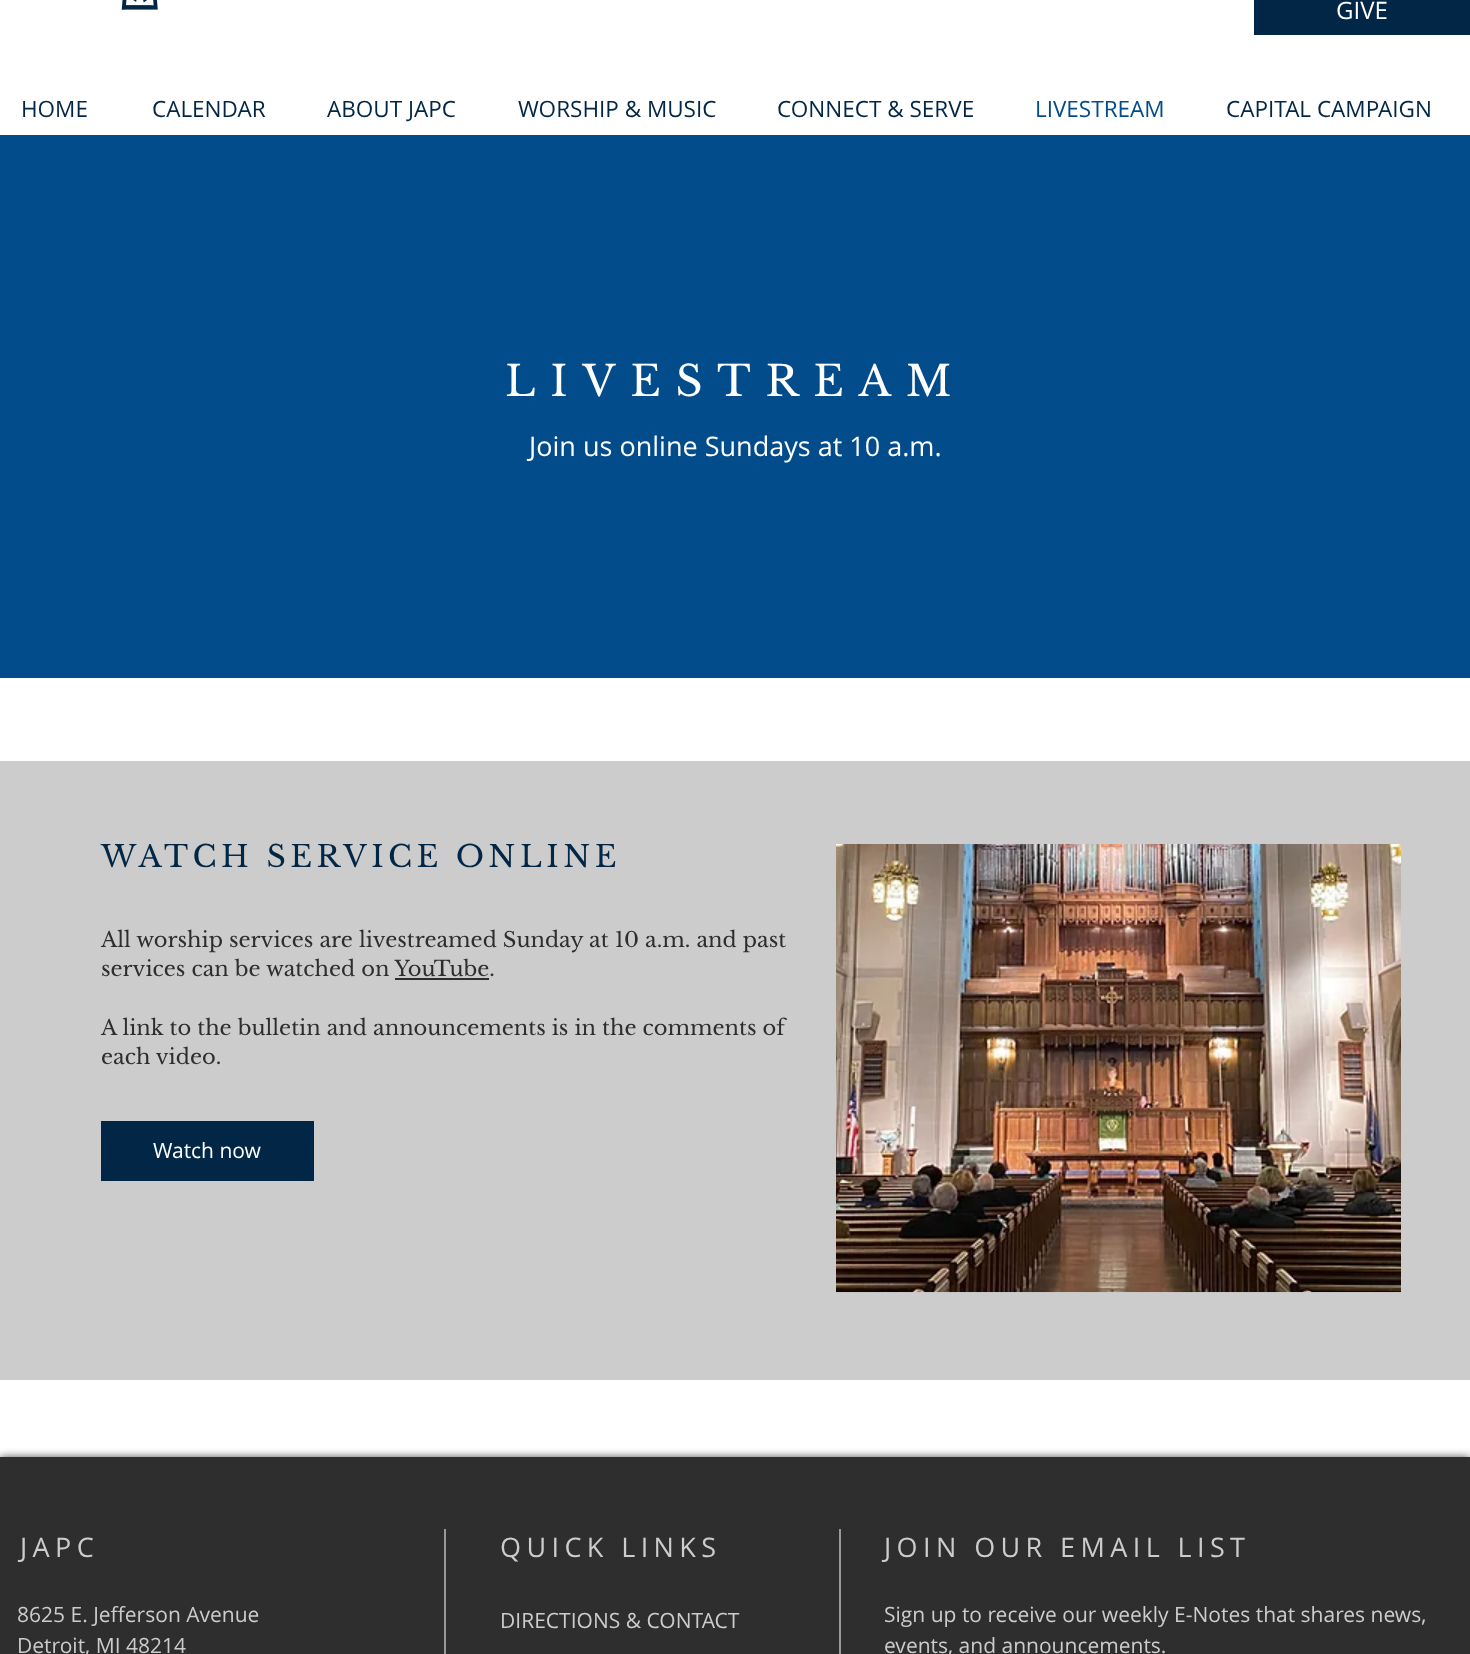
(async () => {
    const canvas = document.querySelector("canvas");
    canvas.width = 1470;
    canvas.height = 1654;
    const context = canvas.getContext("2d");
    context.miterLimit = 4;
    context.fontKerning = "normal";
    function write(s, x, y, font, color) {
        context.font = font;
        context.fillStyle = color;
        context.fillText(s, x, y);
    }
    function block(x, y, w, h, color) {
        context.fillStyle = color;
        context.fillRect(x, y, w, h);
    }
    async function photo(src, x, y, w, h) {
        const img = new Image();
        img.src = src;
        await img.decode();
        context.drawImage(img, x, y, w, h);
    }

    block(0, 0, 1470, 1654, "rgb(255, 255, 255)");
    await photo("media/1.png", 121, 0, 37, 10);
    block(1254, 0, 216, 35, "rgb(1, 38, 70)");
    write("GIVE", 1336, 19, "24px Open Sans", "rgb(255, 255, 255)");
    write("HOME", 21, 117, "22.5px Open Sans", "rgb(1, 38, 70)");
    write("CALENDAR", 152, 117, "22.5px Open Sans", "rgb(1, 38, 70)");
    write("ABOUT JAPC", 327, 117, "22.5px Open Sans", "rgb(1, 38, 70)");
    write("WORSHIP & MUSIC", 518, 117, "22.5px Open Sans", "rgb(1, 38, 70)");
    write("CONNECT & SERVE", 777, 117, "22.5px Open Sans", "rgb(1, 38, 70)");
    write("LIVESTREAM", 1035, 117, "22.5px Open Sans", "rgb(3, 76, 140)");
    write("CAPITAL CAMPAIGN", 1226, 117, "22.5px Open Sans", "rgb(1, 38, 70)");
    block(0, 135, 1470, 543, "rgb(3, 76, 140)");
    context.letterSpacing = "14.75px";
    write("LIVESTREAM", 505, 396, "42px Libre Baskerville", "rgb(255, 255, 255)");
    context.letterSpacing = "0px";
    write("Join us online Sundays at 10 a.m.", 529, 456, "27px Open Sans", "rgb(255, 255, 255)");
    block(0, 761, 1470, 619, "rgb(204, 204, 204)");
    context.letterSpacing = "4.5px";
    write("WATCH SERVICE ONLINE", 101, 867, "30px Libre Baskerville", "rgb(1, 38, 70)");
    await photo("media/2.png", 836, 844, 565, 449);
    context.letterSpacing = "0px";
    write("All worship services are livestreamed Sunday at 10 a.m. and past", 101, 947, "21px Libre Baskerville", "rgb(47, 46, 46)");
    write("services can be watched on YouTube.", 101, 976, "21px Libre Baskerville", "rgb(47, 46, 46)");
    block(395, 978, 94, 2, "rgb(47, 46, 46)");
    write("A link to the bulletin and announcements is in the comments of", 101, 1035, "21px Libre Baskerville", "rgb(47, 46, 46)");
    write("each video.", 101, 1064, "21px Libre Baskerville", "rgb(47, 46, 46)");
    block(101, 1121, 213, 60, "rgb(1, 38, 70)");
    write("Watch now", 153, 1158, "21px Open Sans", "rgb(255, 255, 255)");
    context.fillStyle = "rgba(0, 0, 0, 0.7)";
    context.filter = "blur(4px)";
    context.beginPath();
    context.rect(0, 1457, 1470, 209);
    context.fill();
    context.filter = "none";
    block(0, 1457, 1470, 197, "rgb(47, 46, 46)");
    context.letterSpacing = "5.4px";
    write("JAPC", 20, 1557, "27px Open Sans", "rgb(204, 204, 204)");
    block(444, 1529, 2, 125, "rgb(153, 153, 153)");
    write("QUICK LINKS", 500, 1557, "27px Open Sans", "rgb(204, 204, 204)");
    block(839, 1529, 2, 125, "rgb(153, 153, 153)");
    write("JOIN OUR EMAIL LIST", 884, 1557, "27px Open Sans", "rgb(204, 204, 204)");
    context.letterSpacing = "0px";
    write("8625 E. Jefferson Avenue", 17, 1622, "21px Open Sans", "rgb(204, 204, 204)");
    write("Detroit, MI 48214", 17, 1653, "21px Open Sans", "rgb(204, 204, 204)");
    write("DIRECTIONS & CONTACT", 500, 1628, "21px Open Sans", "rgb(204, 204, 204)");
    write("Sign up to receive our weekly E-Notes that shares news,", 884, 1622, "21px Open Sans", "rgb(204, 204, 204)");
    write("events, and announcements.", 884, 1653, "21px Open Sans", "rgb(204, 204, 204)");
})();
